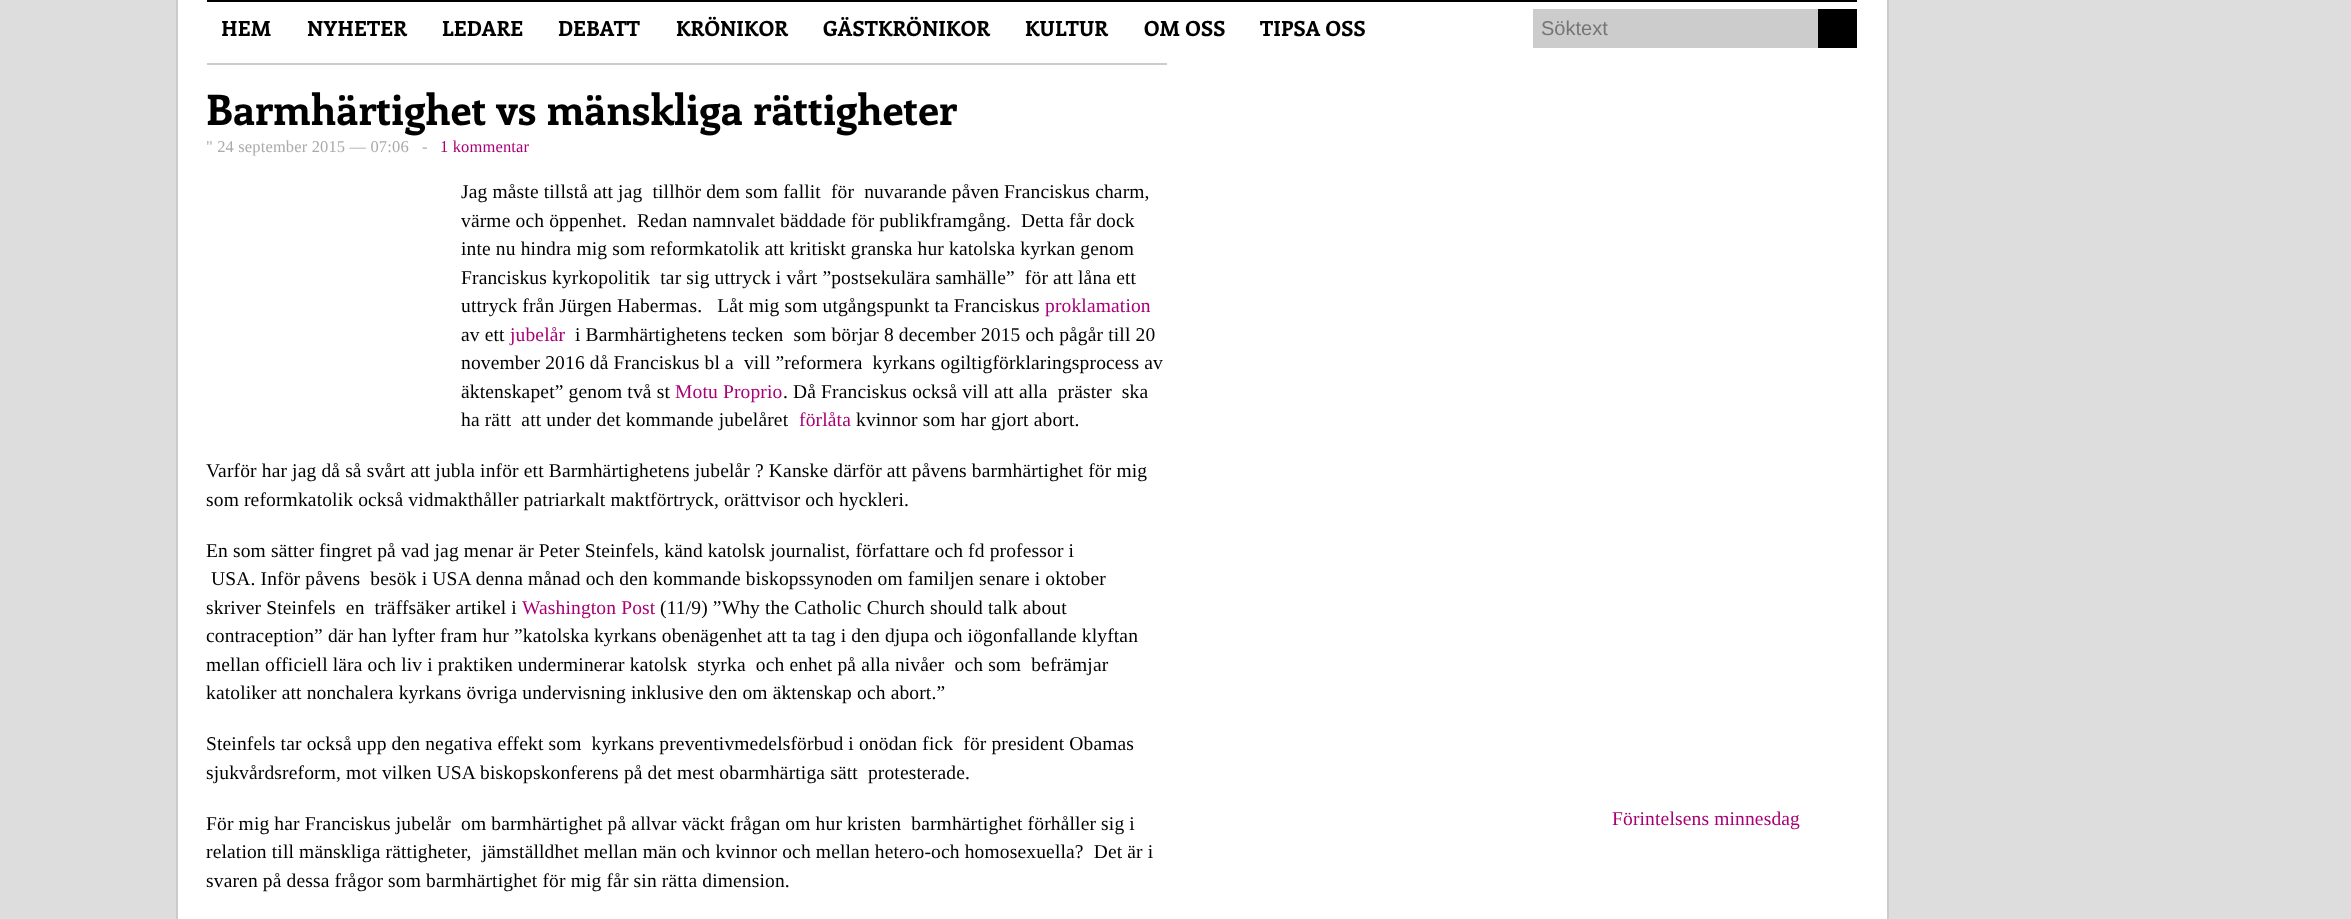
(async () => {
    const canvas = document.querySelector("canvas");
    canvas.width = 2351;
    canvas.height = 919;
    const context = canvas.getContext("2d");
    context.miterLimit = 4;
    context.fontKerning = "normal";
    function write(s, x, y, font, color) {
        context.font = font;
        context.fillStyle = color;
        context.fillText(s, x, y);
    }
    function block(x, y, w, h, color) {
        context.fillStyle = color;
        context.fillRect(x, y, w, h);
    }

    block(0, 0, 2351, 919, "rgb(221, 221, 221)");
    block(178, 0, 1709, 919, "rgb(255, 255, 255)");
    block(1887, 0, 2, 919, "rgb(204, 204, 204)");
    block(176, 0, 2, 919, "rgb(204, 204, 204)");
    block(207, 0, 1650, 2, "rgb(0, 0, 0)");
    context.letterSpacing = "0.15px";
    write("HEM", 221, 36, "bold 21px Enriqueta", "rgb(0, 0, 0)");
    write("NYHETER", 307, 36, "bold 21px Enriqueta", "rgb(0, 0, 0)");
    write("LEDARE", 442, 36, "bold 21px Enriqueta", "rgb(0, 0, 0)");
    write("DEBATT", 558, 36, "bold 21px Enriqueta", "rgb(0, 0, 0)");
    write("KRÖNIKOR", 676, 36, "bold 21px Enriqueta", "rgb(0, 0, 0)");
    write("GÄSTKRÖNIKOR", 823, 36, "bold 21px Enriqueta", "rgb(0, 0, 0)");
    write("KULTUR", 1025, 36, "bold 21px Enriqueta", "rgb(0, 0, 0)");
    write("OM OSS", 1144, 36, "bold 21px Enriqueta", "rgb(0, 0, 0)");
    write("TIPSA OSS", 1260, 36, "bold 21px Enriqueta", "rgb(0, 0, 0)");
    block(1533, 9, 285, 39, "rgb(204, 204, 204)");
    context.letterSpacing = "0px";
    write("Söktext", 1541, 35, "20px Liberation Sans", "rgb(117, 117, 117)");
    block(1818, 9, 39, 39, "rgb(0, 0, 0)");
    block(207, 63, 960, 2, "rgb(204, 204, 204)");
    context.letterSpacing = "0.15px";
    write("Barmhärtighet vs mänskliga rättigheter", 206, 125, "bold 42px Enriqueta", "rgb(0, 0, 0)");
    write("\" 24 september 2015 — 07:06", 206, 152, "16.5px Liberation Serif", "rgb(170, 170, 170)");
    write("-", 422, 152, "16.5px Liberation Serif", "rgb(170, 170, 170)");
    write("1 kommentar", 440, 152, "16.5px Liberation Serif", "rgb(168, 0, 117)");
    write("Jag måste tillstå att jag  tillhör dem som fallit  för  nuvarande påven Franciskus charm,", 461, 198, "19.5px Liberation Serif", "rgb(0, 0, 0)");
    write("värme och öppenhet.  Redan namnvalet bäddade för publikframgång.  Detta får dock", 461, 227, "19.5px Liberation Serif", "rgb(0, 0, 0)");
    write("inte nu hindra mig som reformkatolik att kritiskt granska hur katolska kyrkan genom", 461, 255, "19.5px Liberation Serif", "rgb(0, 0, 0)");
    write("Franciskus kyrkopolitik  tar sig uttryck i vårt ”postsekulära samhälle”  för att låna ett", 461, 284, "19.5px Liberation Serif", "rgb(0, 0, 0)");
    write("uttryck från Jürgen Habermas.   Låt mig som utgångspunkt ta Franciskus", 461, 312, "19.5px Liberation Serif", "rgb(0, 0, 0)");
    write("proklamation", 1045, 312, "19.5px Liberation Serif", "rgb(168, 0, 117)");
    write("av ett", 461, 341, "19.5px Liberation Serif", "rgb(0, 0, 0)");
    write("jubelår", 510, 341, "19.5px Liberation Serif", "rgb(168, 0, 117)");
    write("i Barmhärtighetens tecken  som börjar 8 december 2015 och pågår till 20", 575, 341, "19.5px Liberation Serif", "rgb(0, 0, 0)");
    write("november 2016 då Franciskus bl a  vill ”reformera  kyrkans ogiltigförklaringsprocess av", 461, 369, "19.5px Liberation Serif", "rgb(0, 0, 0)");
    write("äktenskapet” genom två st", 461, 398, "19.5px Liberation Serif", "rgb(0, 0, 0)");
    write("Motu Proprio", 675, 398, "19.5px Liberation Serif", "rgb(168, 0, 117)");
    write(". Då Franciskus också vill att alla  präster  ska", 783, 398, "19.5px Liberation Serif", "rgb(0, 0, 0)");
    write("ha rätt  att under det kommande jubelåret", 461, 426, "19.5px Liberation Serif", "rgb(0, 0, 0)");
    write("förlåta", 799, 426, "19.5px Liberation Serif", "rgb(168, 0, 117)");
    write("kvinnor som har gjort abort.", 856, 426, "19.5px Liberation Serif", "rgb(0, 0, 0)");
    write("Varför har jag då så svårt att jubla inför ett Barmhärtighetens jubelår ? Kanske därför att påvens barmhärtighet för mig", 206, 477, "19.5px Liberation Serif", "rgb(0, 0, 0)");
    write("som reformkatolik också vidmakthåller patriarkalt maktförtryck, orättvisor och hyckleri.", 206, 506, "19.5px Liberation Serif", "rgb(0, 0, 0)");
    write("En som sätter fingret på vad jag menar är Peter Steinfels, känd katolsk journalist, författare och fd professor i", 206, 557, "19.5px Liberation Serif", "rgb(0, 0, 0)");
    write("USA. Inför påvens  besök i USA denna månad och den kommande biskopssynoden om familjen senare i oktober", 211, 585, "19.5px Liberation Serif", "rgb(0, 0, 0)");
    write("skriver Steinfels  en  träffsäker artikel i", 206, 614, "19.5px Liberation Serif", "rgb(0, 0, 0)");
    write("Washington Post", 522, 614, "19.5px Liberation Serif", "rgb(168, 0, 117)");
    write("(11/9) ”Why the Catholic Church should talk about", 660, 614, "19.5px Liberation Serif", "rgb(0, 0, 0)");
    write("contraception” där han lyfter fram hur ”katolska kyrkans obenägenhet att ta tag i den djupa och iögonfallande klyftan", 206, 642, "19.5px Liberation Serif", "rgb(0, 0, 0)");
    write("mellan officiell lära och liv i praktiken underminerar katolsk  styrka  och enhet på alla nivåer  och som  befrämjar", 206, 671, "19.5px Liberation Serif", "rgb(0, 0, 0)");
    write("katoliker att nonchalera kyrkans övriga undervisning inklusive den om äktenskap och abort.”", 206, 699, "19.5px Liberation Serif", "rgb(0, 0, 0)");
    write("Steinfels tar också upp den negativa effekt som  kyrkans preventivmedelsförbud i onödan fick  för president Obamas", 206, 750, "19.5px Liberation Serif", "rgb(0, 0, 0)");
    write("sjukvårdsreform, mot vilken USA biskopskonferens på det mest obarmhärtiga sätt  protesterade.", 206, 779, "19.5px Liberation Serif", "rgb(0, 0, 0)");
    write("För mig har Franciskus jubelår  om barmhärtighet på allvar väckt frågan om hur kristen  barmhärtighet förhåller sig i", 206, 830, "19.5px Liberation Serif", "rgb(0, 0, 0)");
    write("relation till mänskliga rättigheter,  jämställdhet mellan män och kvinnor och mellan hetero-och homosexuella?  Det är i", 206, 858, "19.5px Liberation Serif", "rgb(0, 0, 0)");
    write("svaren på dessa frågor som barmhärtighet för mig får sin rätta dimension.", 206, 887, "19.5px Liberation Serif", "rgb(0, 0, 0)");
    write("Förintelsens minnesdag", 1612, 825, "19.5px Liberation Serif", "rgb(168, 0, 117)");
})();
